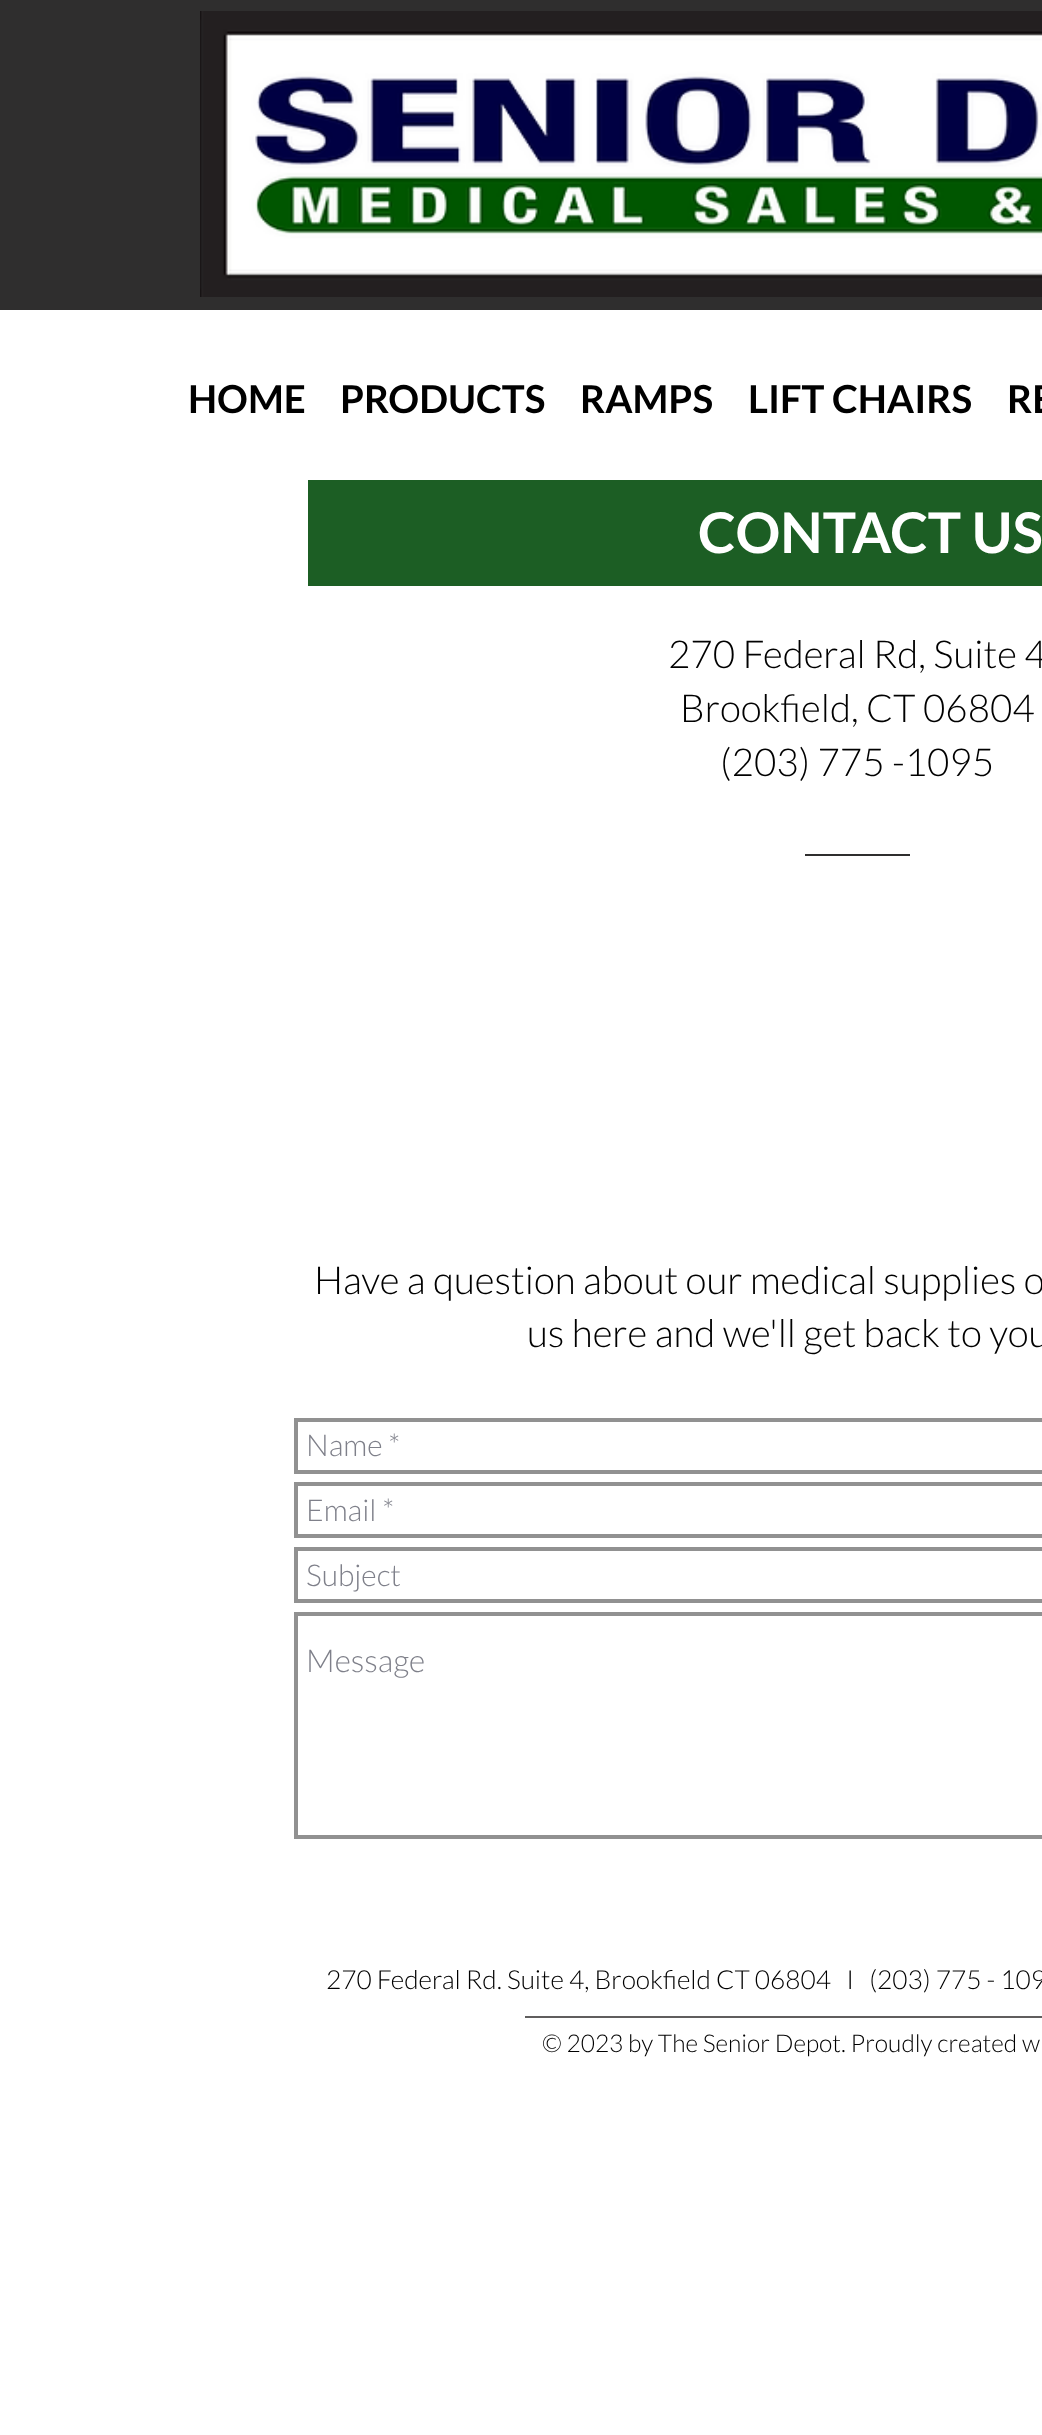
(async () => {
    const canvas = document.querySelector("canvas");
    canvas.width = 1042;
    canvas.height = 2435;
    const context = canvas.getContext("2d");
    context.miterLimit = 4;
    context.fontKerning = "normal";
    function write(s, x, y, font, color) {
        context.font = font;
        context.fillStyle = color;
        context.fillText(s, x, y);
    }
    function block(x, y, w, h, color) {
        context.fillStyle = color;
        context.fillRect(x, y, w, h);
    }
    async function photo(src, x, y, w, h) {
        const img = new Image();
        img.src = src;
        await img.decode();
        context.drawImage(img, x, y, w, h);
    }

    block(0, 0, 1042, 2435, "rgb(255, 255, 255)");
    block(0, 0, 1042, 310, "rgb(47, 46, 46)");
    await photo("media/1.png", 200, 11, 842, 286);
    write("HOME", 188, 413, "bold 38.5px Lato", "rgb(0, 0, 0)");
    write("PRODUCTS", 340, 413, "bold 38.5px Lato", "rgb(0, 0, 0)");
    write("RAMPS", 580, 413, "bold 38.5px Lato", "rgb(0, 0, 0)");
    write("LIFT CHAIRS", 748, 413, "bold 38.5px Lato", "rgb(0, 0, 0)");
    write("RE", 1007, 413, "bold 38.5px Lato", "rgb(0, 0, 0)");
    block(308, 480, 734, 106, "rgb(28, 94, 36)");
    write("CONTACT US", 698, 553, "bold 56px Lato", "rgb(255, 255, 255)");
    write("270 Federal Rd, Suite 4", 668, 668, "300 38.5px Lato", "rgb(0, 0, 0)");
    write("Brookfield, CT 06804", 680, 722, "300 38.5px Lato", "rgb(0, 0, 0)");
    write("(203) 775 -1095", 720, 776, "300 38.5px Lato", "rgb(0, 0, 0)");
    block(805, 854, 105, 2, "rgb(47, 46, 46)");
    write("Have a question about our medical supplies o", 314, 1294, "300 38.5px Lato", "rgb(0, 0, 0)");
    write("us here and we'll get back to you", 527, 1347, "300 38.5px Lato", "rgb(0, 0, 0)");
    context.strokeStyle = "rgb(145, 145, 145)";
    context.lineWidth = 4;
    context.strokeRect(296, 1420, 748, 52);
    write("Name *", 306, 1456, "300 30px Lato", "rgb(127, 128, 138)");
    context.strokeRect(296, 1484, 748, 52);
    write("Email *", 306, 1521, "300 30px Lato", "rgb(127, 128, 138)");
    context.strokeRect(296, 1549, 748, 52);
    write("Subject", 306, 1586, "300 30px Lato", "rgb(127, 128, 138)");
    context.strokeRect(296, 1614, 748, 223);
    write("Message", 306, 1672, "300 31.5px Lato", "rgb(127, 128, 138)");
    write("270 Federal Rd. Suite 4, Brookfield CT 06804   I   (203) 775 - 109", 326, 1989, "300 26.25px Lato", "rgb(0, 0, 0)");
    block(525, 2016, 517, 2, "rgb(96, 94, 94)");
    write("© 2023 by The Senior Depot. Proudly created w", 542, 2052, "300 24.5px Lato", "rgb(0, 0, 0)");
})();
